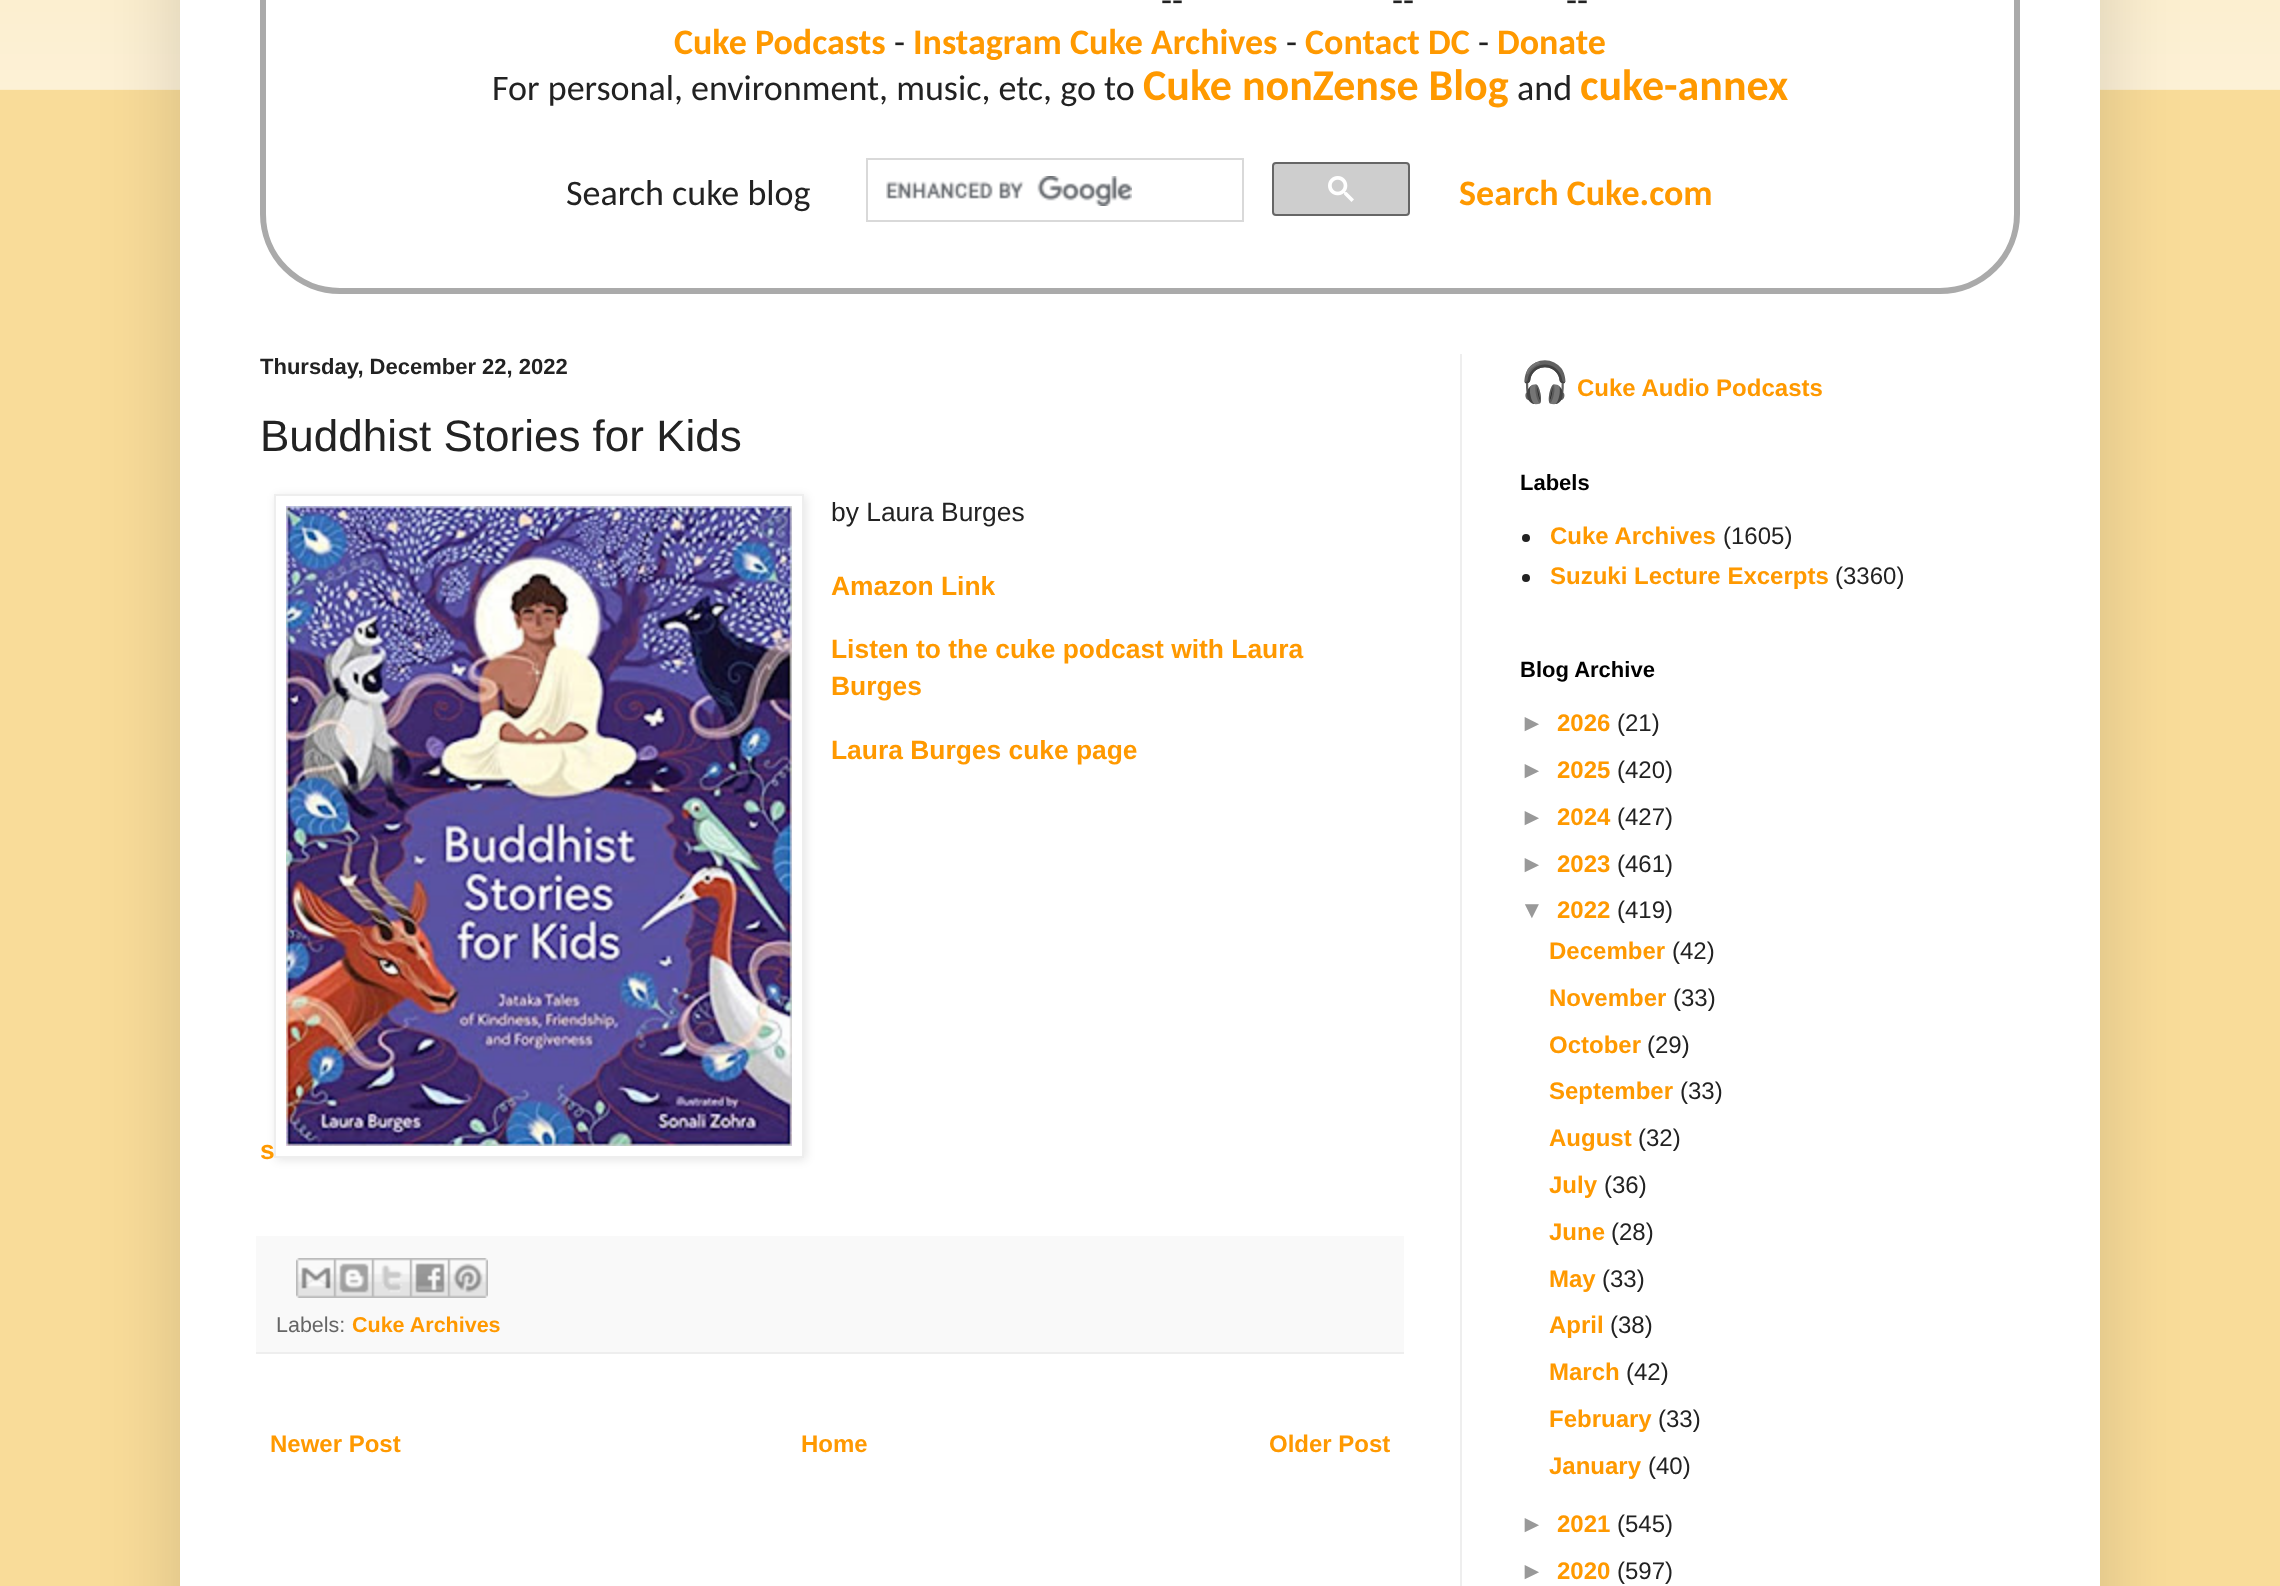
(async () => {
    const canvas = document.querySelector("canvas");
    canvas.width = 2280;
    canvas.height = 1586;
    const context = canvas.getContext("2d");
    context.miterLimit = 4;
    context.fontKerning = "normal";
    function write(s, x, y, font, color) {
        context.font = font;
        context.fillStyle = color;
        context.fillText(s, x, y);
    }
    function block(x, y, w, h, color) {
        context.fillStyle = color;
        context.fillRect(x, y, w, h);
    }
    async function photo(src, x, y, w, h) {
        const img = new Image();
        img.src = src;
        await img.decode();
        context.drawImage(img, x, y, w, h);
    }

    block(0, 0, 2280, 1586, "rgb(249, 220, 153)");
    await photo("media/1.png", 0, 0, 2280, 90);
    context.fillStyle = "rgba(0, 0, 0, 0.15)";
    context.filter = "blur(40px)";
    context.beginPath();
    context.rect(180, -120, 1920, 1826);
    context.fill();
    context.filter = "none";
    block(180, 0, 1920, 1586, "rgb(255, 255, 255)");
    context.beginPath();
    context.roundRect(263, -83, 1754, 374, 77);
    context.strokeStyle = "rgb(170, 170, 170)";
    context.lineWidth = 6;
    context.stroke();
    write("--", 1161, 12, "36px Carlito", "rgb(34, 34, 34)");
    write("--", 1392, 12, "36px Carlito", "rgb(34, 34, 34)");
    write("--", 1566, 12, "36px Carlito", "rgb(34, 34, 34)");
    write("Cuke Podcasts", 674, 54, "bold 36px Carlito", "rgb(255, 153, 0)");
    write("-", 894, 54, "36px Carlito", "rgb(34, 34, 34)");
    write("Instagram Cuke Archives", 913, 54, "bold 36px Carlito", "rgb(255, 153, 0)");
    write("-", 1286, 54, "36px Carlito", "rgb(34, 34, 34)");
    write("Contact DC", 1305, 54, "bold 36px Carlito", "rgb(255, 153, 0)");
    write("-", 1478, 54, "36px Carlito", "rgb(34, 34, 34)");
    write("Donate", 1497, 54, "bold 36px Carlito", "rgb(255, 153, 0)");
    write("For personal, environment, music, etc, go to", 492, 100, "36px Carlito", "rgb(34, 34, 34)");
    write("Cuke nonZense Blog", 1143, 100, "bold 44px Carlito", "rgb(255, 153, 0)");
    write("and", 1517, 100, "36px Carlito", "rgb(34, 34, 34)");
    write("cuke-annex", 1580, 100, "bold 44px Carlito", "rgb(255, 153, 0)");
    write("Search cuke blog", 566, 205, "36px Carlito", "rgb(34, 34, 34)");
    context.strokeStyle = "rgb(217, 217, 217)";
    context.lineWidth = 2;
    context.strokeRect(867, 159, 376, 62);
    await photo("media/2.png", 886, 176, 246, 30);
    context.fillStyle = "rgb(206, 206, 206)";
    context.beginPath();
    context.roundRect(1273, 163, 136, 52, 3);
    context.fill();
    context.strokeStyle = "rgb(102, 102, 102)";
    context.stroke();
    await photo("media/3.png", 1328, 176, 26, 26);
    write("Search Cuke.com", 1459, 205, "bold 36px Carlito", "rgb(255, 153, 0)");
    block(1460, 354, 2, 1232, "rgb(238, 238, 238)");
    write("Thursday, December 22, 2022", 260, 374, "bold 22px Liberation Sans", "rgb(34, 34, 34)");
    write("Buddhist Stories for Kids", 260, 451, "44px Liberation Sans", "rgb(34, 34, 34)");
    write("by Laura Burges", 831, 521, "26.4px Liberation Sans", "rgb(34, 34, 34)");
    write("Amazon Link", 831, 595, "bold 26.4px Liberation Sans", "rgb(255, 153, 0)");
    write("Listen to the cuke podcast with Laura", 831, 658, "bold 26.4px Liberation Sans", "rgb(255, 153, 0)");
    write("Burges", 831, 695, "bold 26.4px Liberation Sans", "rgb(255, 153, 0)");
    write("Laura Burges cuke page", 831, 759, "bold 26.4px Liberation Sans", "rgb(255, 153, 0)");
    context.save();
    context.beginPath();
    context.moveTo(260, 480);
    context.lineTo(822, 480);
    context.lineTo(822, 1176);
    context.lineTo(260, 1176);
    context.closePath();
    context.moveTo(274, 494);
    context.lineTo(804, 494);
    context.lineTo(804, 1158);
    context.lineTo(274, 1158);
    context.closePath();
    context.clip("evenodd");
    context.fillStyle = "rgba(0, 0, 0, 0.1)";
    context.filter = "blur(5px)";
    context.beginPath();
    context.rect(276, 496, 530, 664);
    context.fill();
    context.filter = "none";
    context.restore();
    context.strokeStyle = "rgb(238, 238, 238)";
    context.strokeRect(275, 495, 528, 662);
    await photo("media/4.png", 286, 506, 506, 640);
    write("s", 260, 1159, "bold 26.4px Liberation Sans", "rgb(255, 153, 0)");
    block(256, 1236, 1148, 116, "rgb(249, 249, 249)");
    block(256, 1352, 1148, 2, "rgb(238, 238, 238)");
    await photo("media/5.png", 296, 1258, 38, 40);
    await photo("media/6.png", 334, 1258, 38, 40);
    await photo("media/7.png", 372, 1258, 38, 40);
    await photo("media/8.png", 410, 1258, 38, 40);
    await photo("media/9.png", 448, 1258, 40, 40);
    write("Labels:", 276, 1332, "21.5px Liberation Sans", "rgb(102, 102, 102)");
    write("Cuke Archives", 352, 1332, "bold 21.5px Liberation Sans", "rgb(255, 153, 0)");
    write("Newer Post", 270, 1452, "bold 24px Liberation Sans", "rgb(255, 153, 0)");
    write("Home", 801, 1452, "bold 24px Liberation Sans", "rgb(255, 153, 0)");
    write("Older Post", 1269, 1452, "bold 24px Liberation Sans", "rgb(255, 153, 0)");
    write("🎧", 1520, 396, "bold 40px Noto Color Emoji", "rgb(255, 153, 0)");
    write("Cuke Audio Podcasts", 1577, 396, "bold 24px Liberation Sans", "rgb(255, 153, 0)");
    write("Labels", 1520, 490, "bold 22px Liberation Sans", "rgb(0, 0, 0)");
    context.fillStyle = "rgb(34, 34, 34)";
    context.beginPath();
    context.arc(1526, 538, 4, 0, Math.PI * 2);
    context.fill();
    write("Cuke Archives", 1550, 544, "bold 24px Liberation Sans", "rgb(255, 153, 0)");
    write("(1605)", 1723, 544, "24px Liberation Sans", "rgb(34, 34, 34)");
    context.beginPath();
    context.arc(1526, 578, 4, 0, Math.PI * 2);
    context.fill();
    write("Suzuki Lecture Excerpts", 1550, 584, "bold 24px Liberation Sans", "rgb(255, 153, 0)");
    write("(3360)", 1835, 584, "24px Liberation Sans", "rgb(34, 34, 34)");
    write("Blog Archive", 1520, 677, "bold 22px Liberation Sans", "rgb(0, 0, 0)");
    write("►", 1520, 731, "bold 24px Liberation Sans", "rgb(153, 153, 153)");
    write("2026", 1557, 731, "bold 24px Liberation Sans", "rgb(255, 153, 0)");
    write("(21)", 1617, 731, "24px Liberation Sans", "rgb(34, 34, 34)");
    write("►", 1520, 778, "bold 24px Liberation Sans", "rgb(153, 153, 153)");
    write("2025", 1557, 778, "bold 24px Liberation Sans", "rgb(255, 153, 0)");
    write("(420)", 1617, 778, "24px Liberation Sans", "rgb(34, 34, 34)");
    write("►", 1520, 825, "bold 24px Liberation Sans", "rgb(153, 153, 153)");
    write("2024", 1557, 825, "bold 24px Liberation Sans", "rgb(255, 153, 0)");
    write("(427)", 1617, 825, "24px Liberation Sans", "rgb(34, 34, 34)");
    write("►", 1520, 872, "bold 24px Liberation Sans", "rgb(153, 153, 153)");
    write("2023", 1557, 872, "bold 24px Liberation Sans", "rgb(255, 153, 0)");
    write("(461)", 1617, 872, "24px Liberation Sans", "rgb(34, 34, 34)");
    write("▼", 1520, 918, "bold 24px Liberation Sans", "rgb(153, 153, 153)");
    write("2022", 1557, 918, "bold 24px Liberation Sans", "rgb(255, 153, 0)");
    write("(419)", 1617, 918, "24px Liberation Sans", "rgb(34, 34, 34)");
    write("December", 1549, 959, "bold 24px Liberation Sans", "rgb(255, 153, 0)");
    write("(42)", 1672, 959, "24px Liberation Sans", "rgb(34, 34, 34)");
    write("November", 1549, 1006, "bold 24px Liberation Sans", "rgb(255, 153, 0)");
    write("(33)", 1673, 1006, "24px Liberation Sans", "rgb(34, 34, 34)");
    write("October", 1549, 1053, "bold 24px Liberation Sans", "rgb(255, 153, 0)");
    write("(29)", 1647, 1053, "24px Liberation Sans", "rgb(34, 34, 34)");
    write("September", 1549, 1099, "bold 24px Liberation Sans", "rgb(255, 153, 0)");
    write("(33)", 1680, 1099, "24px Liberation Sans", "rgb(34, 34, 34)");
    write("August", 1549, 1146, "bold 24px Liberation Sans", "rgb(255, 153, 0)");
    write("(32)", 1638, 1146, "24px Liberation Sans", "rgb(34, 34, 34)");
    write("July", 1549, 1193, "bold 24px Liberation Sans", "rgb(255, 153, 0)");
    write("(36)", 1604, 1193, "24px Liberation Sans", "rgb(34, 34, 34)");
    write("June", 1549, 1240, "bold 24px Liberation Sans", "rgb(255, 153, 0)");
    write("(28)", 1611, 1240, "24px Liberation Sans", "rgb(34, 34, 34)");
    write("May", 1549, 1287, "bold 24px Liberation Sans", "rgb(255, 153, 0)");
    write("(33)", 1602, 1287, "24px Liberation Sans", "rgb(34, 34, 34)");
    write("April", 1549, 1333, "bold 24px Liberation Sans", "rgb(255, 153, 0)");
    write("(38)", 1610, 1333, "24px Liberation Sans", "rgb(34, 34, 34)");
    write("March", 1549, 1380, "bold 24px Liberation Sans", "rgb(255, 153, 0)");
    write("(42)", 1626, 1380, "24px Liberation Sans", "rgb(34, 34, 34)");
    write("February", 1549, 1427, "bold 24px Liberation Sans", "rgb(255, 153, 0)");
    write("(33)", 1658, 1427, "24px Liberation Sans", "rgb(34, 34, 34)");
    write("January", 1549, 1474, "bold 24px Liberation Sans", "rgb(255, 153, 0)");
    write("(40)", 1648, 1474, "24px Liberation Sans", "rgb(34, 34, 34)");
    write("►", 1520, 1532, "bold 24px Liberation Sans", "rgb(153, 153, 153)");
    write("2021", 1557, 1532, "bold 24px Liberation Sans", "rgb(255, 153, 0)");
    write("(545)", 1617, 1532, "24px Liberation Sans", "rgb(34, 34, 34)");
    write("►", 1520, 1579, "bold 24px Liberation Sans", "rgb(153, 153, 153)");
    write("2020", 1557, 1579, "bold 24px Liberation Sans", "rgb(255, 153, 0)");
    write("(597)", 1617, 1579, "24px Liberation Sans", "rgb(34, 34, 34)");
})();
